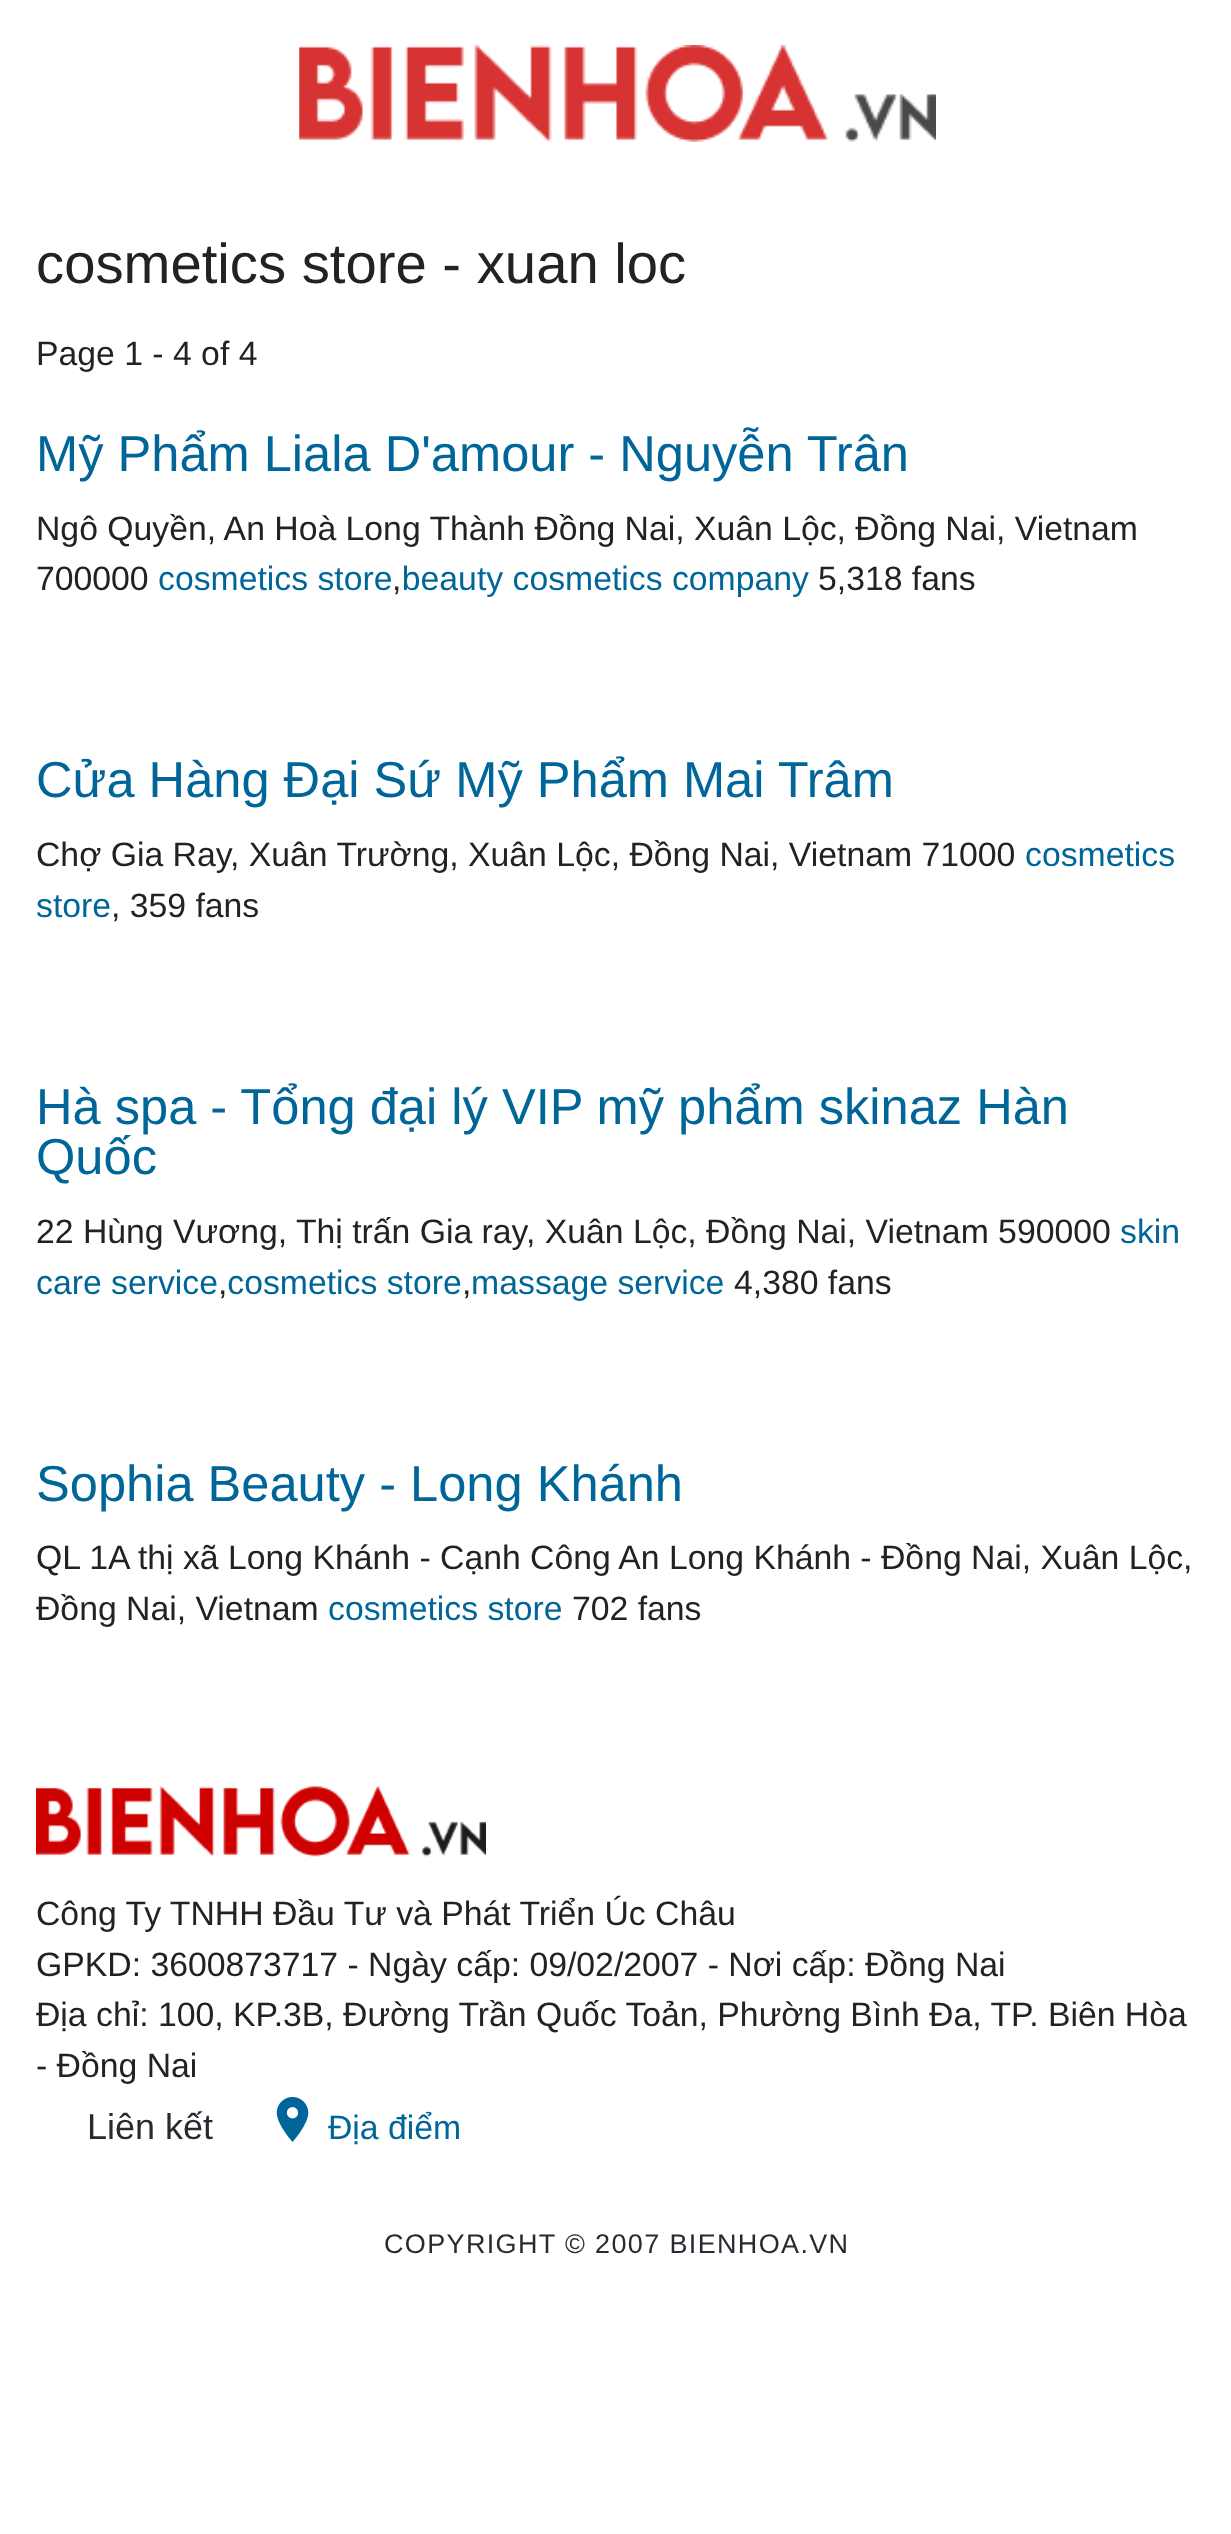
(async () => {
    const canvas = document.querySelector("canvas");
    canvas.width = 1231;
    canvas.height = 2534;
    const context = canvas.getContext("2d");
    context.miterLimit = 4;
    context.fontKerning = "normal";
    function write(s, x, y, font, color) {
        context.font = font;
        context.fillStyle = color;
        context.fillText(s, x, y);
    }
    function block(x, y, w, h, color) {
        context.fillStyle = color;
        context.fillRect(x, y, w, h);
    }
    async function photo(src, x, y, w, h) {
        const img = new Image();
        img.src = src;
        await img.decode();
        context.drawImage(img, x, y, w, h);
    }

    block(0, 0, 1231, 2534, "rgb(255, 255, 255)");
    await photo("media/1.png", 299, 45, 637, 97);
    write("cosmetics store - xuan loc", 36, 283, "56.25px Liberation Sans", "rgb(34, 34, 34)");
    write("Page 1 - 4 of 4", 36, 365, "33.75px Liberation Sans", "rgb(34, 34, 34)");
    write("Mỹ Phẩm Liala D'amour - Nguyễn Trân", 36, 471, "50.6px Liberation Sans", "rgb(0, 102, 153)");
    write("Ngô Quyền, An Hoà Long Thành Đồng Nai, Xuân Lộc, Ðồng Nai, Vietnam", 36, 540, "33.75px Liberation Sans", "rgb(34, 34, 34)");
    write("700000", 36, 590, "33.75px Liberation Sans", "rgb(34, 34, 34)");
    write("cosmetics store beauty cosmetics company", 158, 590, "33.75px Liberation Sans", "rgb(0, 102, 153)");
    write("5,318 fans", 818, 590, "33.75px Liberation Sans", "rgb(34, 34, 34)");
    write(",", 392, 590, "33.75px Liberation Sans", "rgb(34, 34, 34)");
    write("Cửa Hàng Đại Sứ Mỹ Phẩm Mai Trâm", 36, 797, "50.6px Liberation Sans", "rgb(0, 102, 153)");
    write("Chợ Gia Ray, Xuân Trường, Xuân Lộc, Ðồng Nai, Vietnam 71000", 36, 866, "33.75px Liberation Sans", "rgb(34, 34, 34)");
    write("cosmetics", 1025, 866, "33.75px Liberation Sans", "rgb(0, 102, 153)");
    write("store", 36, 917, "33.75px Liberation Sans", "rgb(0, 102, 153)");
    write(", 359 fans", 111, 917, "33.75px Liberation Sans", "rgb(34, 34, 34)");
    write("Hà spa - Tổng đại lý VIP mỹ phẩm skinaz Hàn", 36, 1124, "50.6px Liberation Sans", "rgb(0, 102, 153)");
    write("Quốc", 36, 1174, "50.6px Liberation Sans", "rgb(0, 102, 153)");
    write("22 Hùng Vương, Thị trấn Gia ray, Xuân Lộc, Ðồng Nai, Vietnam 590000", 36, 1243, "33.75px Liberation Sans", "rgb(34, 34, 34)");
    write("skin", 1120, 1243, "33.75px Liberation Sans", "rgb(0, 102, 153)");
    write("care service cosmetics store massage service", 36, 1294, "33.75px Liberation Sans", "rgb(0, 102, 153)");
    write("4,380 fans", 734, 1294, "33.75px Liberation Sans", "rgb(34, 34, 34)");
    write(",", 218, 1294, "33.75px Liberation Sans", "rgb(34, 34, 34)");
    write(",", 462, 1294, "33.75px Liberation Sans", "rgb(34, 34, 34)");
    write("Sophia Beauty - Long Khánh", 36, 1501, "50.6px Liberation Sans", "rgb(0, 102, 153)");
    write("QL 1A thị xã Long Khánh - Cạnh Công An Long Khánh - Đồng Nai, Xuân Lộc,", 36, 1569, "33.75px Liberation Sans", "rgb(34, 34, 34)");
    write("Ðồng Nai, Vietnam", 36, 1620, "33.75px Liberation Sans", "rgb(34, 34, 34)");
    write("cosmetics store", 328, 1620, "33.75px Liberation Sans", "rgb(0, 102, 153)");
    write("702 fans", 572, 1620, "33.75px Liberation Sans", "rgb(34, 34, 34)");
    await photo("media/2.png", 36, 1786, 450, 71);
    write("Công Ty TNHH Đầu Tư và Phát Triển Úc Châu", 36, 1925, "33.75px Liberation Sans", "rgb(34, 34, 34)");
    write("GPKD: 3600873717 - Ngày cấp: 09/02/2007 - Nơi cấp: Đồng Nai", 36, 1976, "33.75px Liberation Sans", "rgb(34, 34, 34)");
    write("Địa chỉ: 100, KP.3B, Đường Trần Quốc Toản, Phường Bình Đa, TP. Biên Hòa", 36, 2026, "33.75px Liberation Sans", "rgb(34, 34, 34)");
    write("- Đồng Nai", 36, 2077, "33.75px Liberation Sans", "rgb(34, 34, 34)");
    write("Liên kết", 87, 2139, "36px Liberation Sans", "rgb(41, 42, 49)");
    await photo("media/3.png", 276, 2097, 33, 45);
    write("Địa điểm", 328, 2139, "33.75px Liberation Sans", "rgb(0, 102, 153)");
    context.letterSpacing = "1.35px";
    write("COPYRIGHT © 2007 BIENHOA.VN", 384, 2253, "27px Liberation Sans", "rgb(41, 42, 49)");
})();
